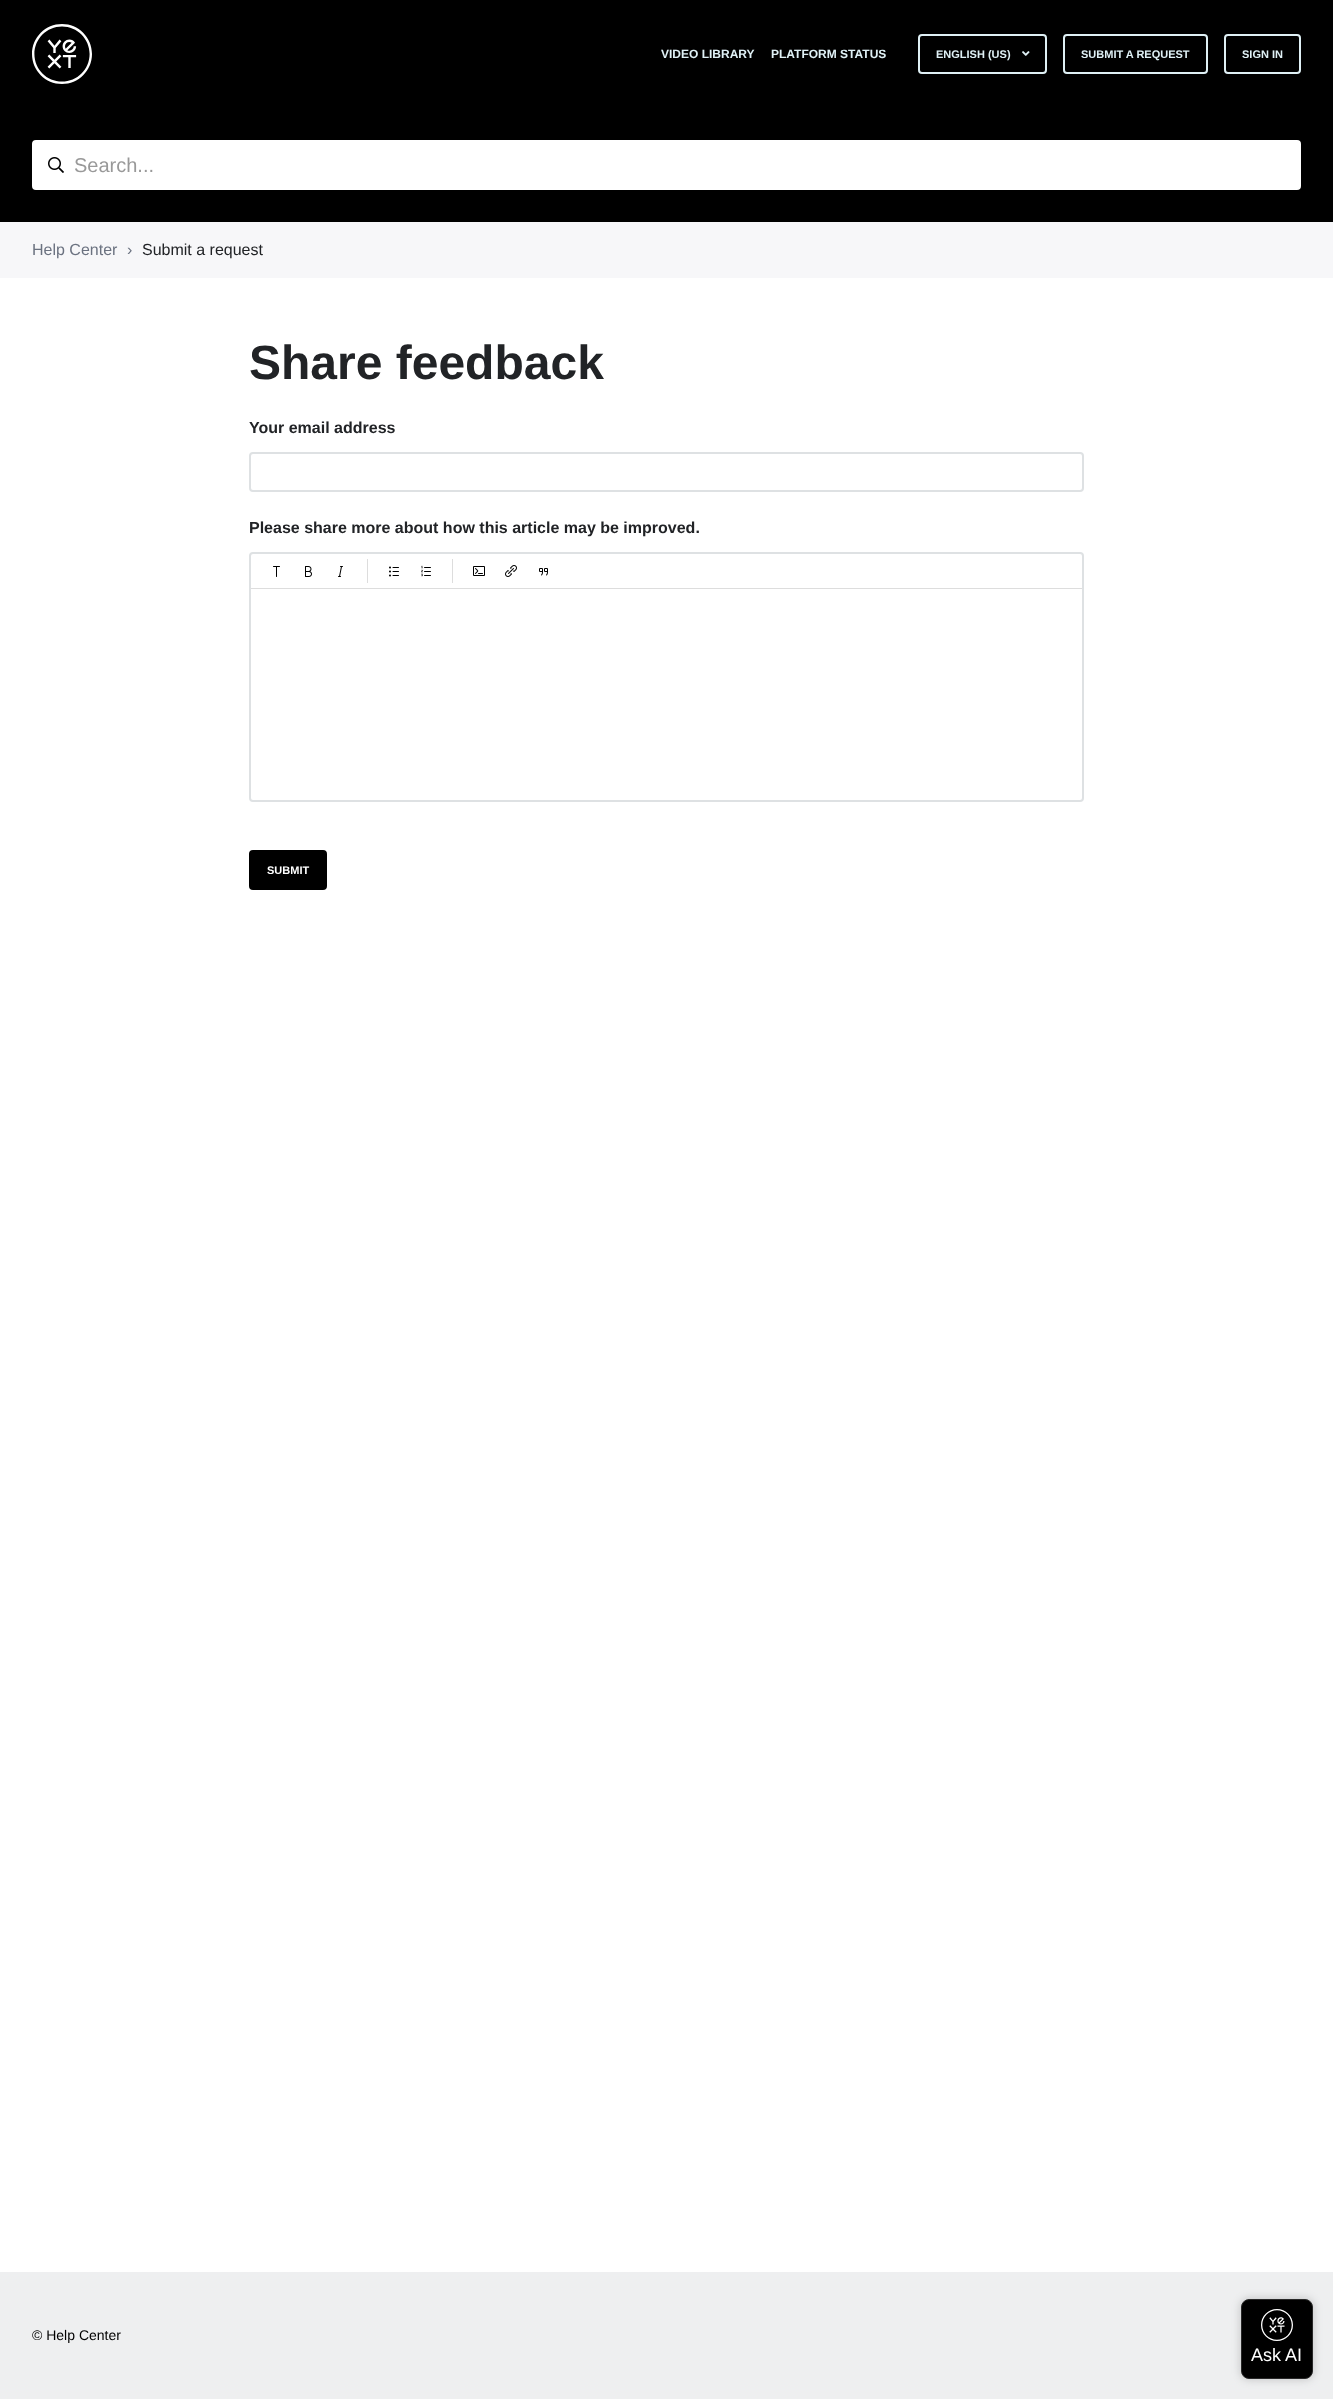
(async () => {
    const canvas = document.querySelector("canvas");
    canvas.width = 1333;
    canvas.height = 2399;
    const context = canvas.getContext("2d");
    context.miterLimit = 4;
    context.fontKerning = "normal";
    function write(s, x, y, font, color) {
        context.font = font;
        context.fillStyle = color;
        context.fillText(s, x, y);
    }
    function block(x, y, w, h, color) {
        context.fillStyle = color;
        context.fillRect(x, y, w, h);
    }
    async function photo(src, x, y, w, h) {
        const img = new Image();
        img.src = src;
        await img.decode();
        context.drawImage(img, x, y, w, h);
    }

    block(0, 0, 1333, 2399, "rgb(255, 255, 255)");
    block(0, 0, 1333, 222, "rgb(0, 0, 0)");
    await photo("media/1.png", 32, 24, 60, 60);
    write("VIDEO LIBRARY", 661, 58, "bold 12px Liberation Sans", "rgb(223, 240, 245)");
    write("PLATFORM STATUS", 771, 58, "bold 12px Liberation Sans", "rgb(223, 240, 245)");
    context.beginPath();
    context.roundRect(919, 35, 127, 38, 3);
    context.strokeStyle = "rgb(223, 240, 245)";
    context.lineWidth = 2;
    context.stroke();
    write("ENGLISH (US)", 936, 58, "bold 11px Liberation Sans", "rgb(223, 240, 245)");
    await photo("media/2.png", 1022, 51, 8, 5);
    context.beginPath();
    context.roundRect(1064, 35, 143, 38, 3);
    context.stroke();
    write("SUBMIT A REQUEST", 1081, 58, "bold 11px Liberation Sans", "rgb(223, 240, 245)");
    context.beginPath();
    context.roundRect(1225, 35, 75, 38, 3);
    context.stroke();
    write("SIGN IN", 1242, 58, "bold 11px Liberation Sans", "rgb(223, 240, 245)");
    context.fillStyle = "rgb(255, 255, 255)";
    context.beginPath();
    context.roundRect(33, 141, 1267, 48, 3);
    context.fill();
    context.strokeStyle = "rgb(255, 255, 255)";
    context.stroke();
    await photo("media/3.png", 48, 157, 16, 16);
    write("Search...", 74, 172, "20px Liberation Sans", "rgb(153, 153, 153)");
    block(0, 222, 1333, 56, "rgb(247, 247, 249)");
    write("Help Center", 32, 255, "16px Liberation Sans", "rgb(107, 114, 128)");
    write("›", 127, 255, "16px Liberation Sans", "rgb(107, 114, 128)");
    write("Submit a request", 142, 255, "16px Liberation Sans", "rgb(33, 35, 38)");
    write("Share feedback", 249, 379, "bold 48px Liberation Sans", "rgb(33, 35, 38)");
    write("Your email address", 249, 433, "bold 16px Liberation Sans", "rgb(33, 35, 38)");
    context.beginPath();
    context.roundRect(250, 453, 833, 38, 3);
    context.strokeStyle = "rgb(222, 225, 227)";
    context.stroke();
    write("Please share more about how this article may be improved.", 249, 533, "bold 16px Liberation Sans", "rgb(33, 35, 38)");
    context.beginPath();
    context.roundRect(250, 553, 833, 248, 3);
    context.stroke();
    block(251, 588, 831, 1, "rgb(221, 221, 221)");
    context.beginPath();
    context.moveTo(273.5, 566.5);
    context.lineTo(279.5, 566.5);
    context.moveTo(276.5, 566.5);
    context.lineTo(276.5, 576.5);
    context.strokeStyle = "rgb(0, 0, 0)";
    context.lineWidth = 1;
    context.lineCap = "round";
    context.stroke();
    await photo("media/4.png", 305, 566, 7, 11);
    await photo("media/5.png", 338, 566, 5, 11);
    block(367, 559, 1, 24, "rgb(221, 221, 221)");
    await photo("media/6.png", 389, 566, 10, 11);
    await photo("media/7.png", 421, 565, 10, 12);
    block(452, 559, 1, 24, "rgb(221, 221, 221)");
    await photo("media/8.png", 473, 566, 12, 10);
    await photo("media/9.png", 505, 565, 12, 12);
    await photo("media/10.png", 539, 568, 9, 8);
    context.fillStyle = "rgb(0, 0, 0)";
    context.beginPath();
    context.roundRect(250, 851, 76, 38, 3);
    context.fill();
    context.lineWidth = 2;
    context.stroke();
    write("SUBMIT", 267, 874, "bold 11px Liberation Sans", "rgb(255, 255, 255)");
    block(0, 2272, 1333, 127, "rgb(238, 239, 240)");
    write("© Help Center", 32, 2340, "14px Liberation Sans", "rgb(0, 0, 0)");
    context.fillStyle = "rgba(0, 0, 0, 0.2)";
    context.filter = "blur(5px)";
    context.beginPath();
    context.roundRect(1241, 2299, 72, 80, 8);
    context.fill();
    context.filter = "none";
    context.fillStyle = "rgb(0, 0, 0)";
    context.beginPath();
    context.roundRect(1241.5, 2299.5, 71, 79, 7.5);
    context.fill();
    context.strokeStyle = "rgb(40, 40, 40)";
    context.lineWidth = 1;
    context.stroke();
    await photo("media/11.png", 1261, 2309, 32, 32);
    write("Ask AI", 1251, 2361, "18px Liberation Sans", "rgb(255, 255, 255)");
})();
